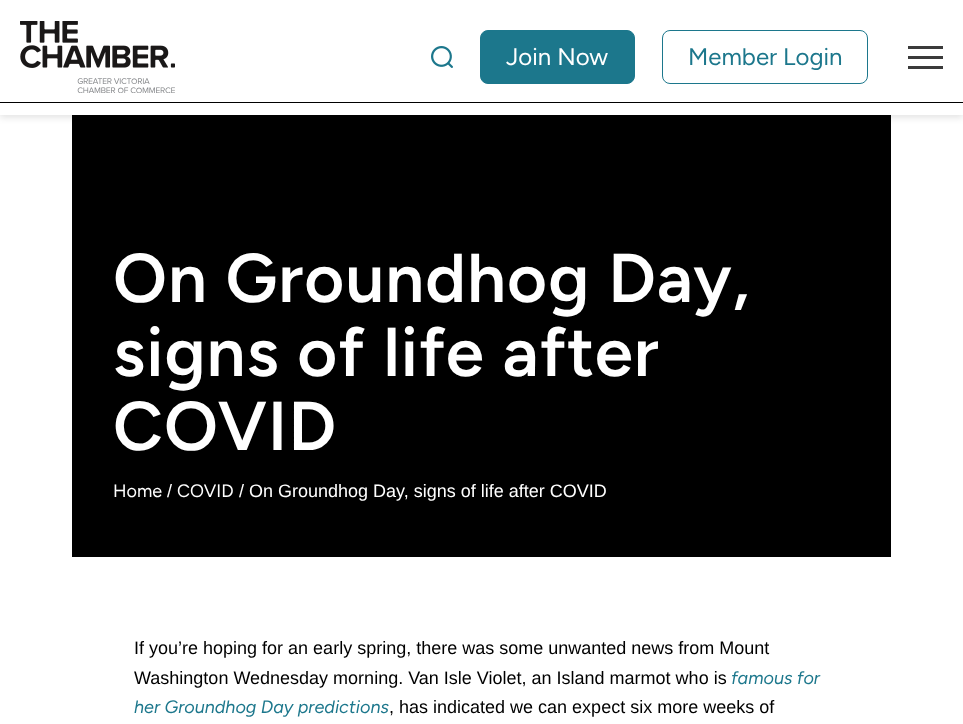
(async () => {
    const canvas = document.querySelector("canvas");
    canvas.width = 963;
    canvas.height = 724;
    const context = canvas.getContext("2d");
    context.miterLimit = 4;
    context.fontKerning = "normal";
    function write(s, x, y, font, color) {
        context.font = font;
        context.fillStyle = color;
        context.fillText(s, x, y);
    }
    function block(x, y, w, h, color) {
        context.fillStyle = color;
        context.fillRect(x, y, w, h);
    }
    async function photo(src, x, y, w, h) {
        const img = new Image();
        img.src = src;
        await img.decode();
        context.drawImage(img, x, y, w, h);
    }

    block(0, 0, 963, 724, "rgb(255, 255, 255)");
    block(72, 115, 819, 442, "rgb(0, 0, 0)");
    context.fillStyle = "rgba(0, 0, 0, 0.1)";
    context.filter = "blur(3px)";
    context.beginPath();
    context.rect(0, 3, 963, 115);
    context.fill();
    context.filter = "none";
    block(0, 0, 963, 115, "rgb(255, 255, 255)");
    block(0, 102, 963, 1, "rgb(0, 0, 0)");
    await photo("media/1.png", 20, 21, 155, 72);
    await photo("media/2.png", 431, 46, 22, 22);
    context.fillStyle = "rgb(28, 119, 140)";
    context.beginPath();
    context.roundRect(480.5, 30.5, 154, 53, 7.5);
    context.fill();
    context.strokeStyle = "rgb(28, 119, 140)";
    context.stroke();
    write("Join Now", 506, 65, "24px Figtree", "rgb(255, 255, 255)");
    context.beginPath();
    context.roundRect(662.5, 30.5, 205, 53, 7.5);
    context.stroke();
    write("Member Login", 688, 65, "24px Figtree", "rgb(28, 119, 140)");
    block(908, 56, 35, 3, "rgb(59, 59, 59)");
    block(908, 46, 35, 3, "rgb(59, 59, 59)");
    block(908, 66, 35, 3, "rgb(59, 59, 59)");
    context.letterSpacing = "1px";
    write("On Groundhog Day,", 113, 302, "600 69px Figtree", "rgb(255, 255, 255)");
    write("signs of life after", 113, 376, "600 69px Figtree", "rgb(255, 255, 255)");
    write("COVID", 113, 450, "600 69px Figtree", "rgb(255, 255, 255)");
    context.letterSpacing = "0px";
    write("Home", 113, 497, "18px Figtree", "rgb(255, 255, 255)");
    write("/", 167, 497, "18px Liberation Sans", "rgb(255, 255, 255)");
    write("COVID", 177, 497, "18px Figtree", "rgb(255, 255, 255)");
    write("/ On Groundhog Day, signs of life after COVID", 239, 497, "18px Liberation Sans", "rgb(255, 255, 255)");
    write("If you’re hoping for an early spring, there was some unwanted news from Mount", 134, 654, "18px Liberation Sans", "rgb(0, 0, 0)");
    write("Washington Wednesday morning. Van Isle Violet, an Island marmot who is", 134, 684, "18px Liberation Sans", "rgb(0, 0, 0)");
    write("famous for", 731, 684, "italic 18px Figtree", "rgb(28, 119, 140)");
    write("her Groundhog Day predictions", 134, 713, "italic 18px Figtree", "rgb(28, 119, 140)");
    write(", has indicated we can expect six more weeks of", 389, 713, "18px Liberation Sans", "rgb(0, 0, 0)");
})();
